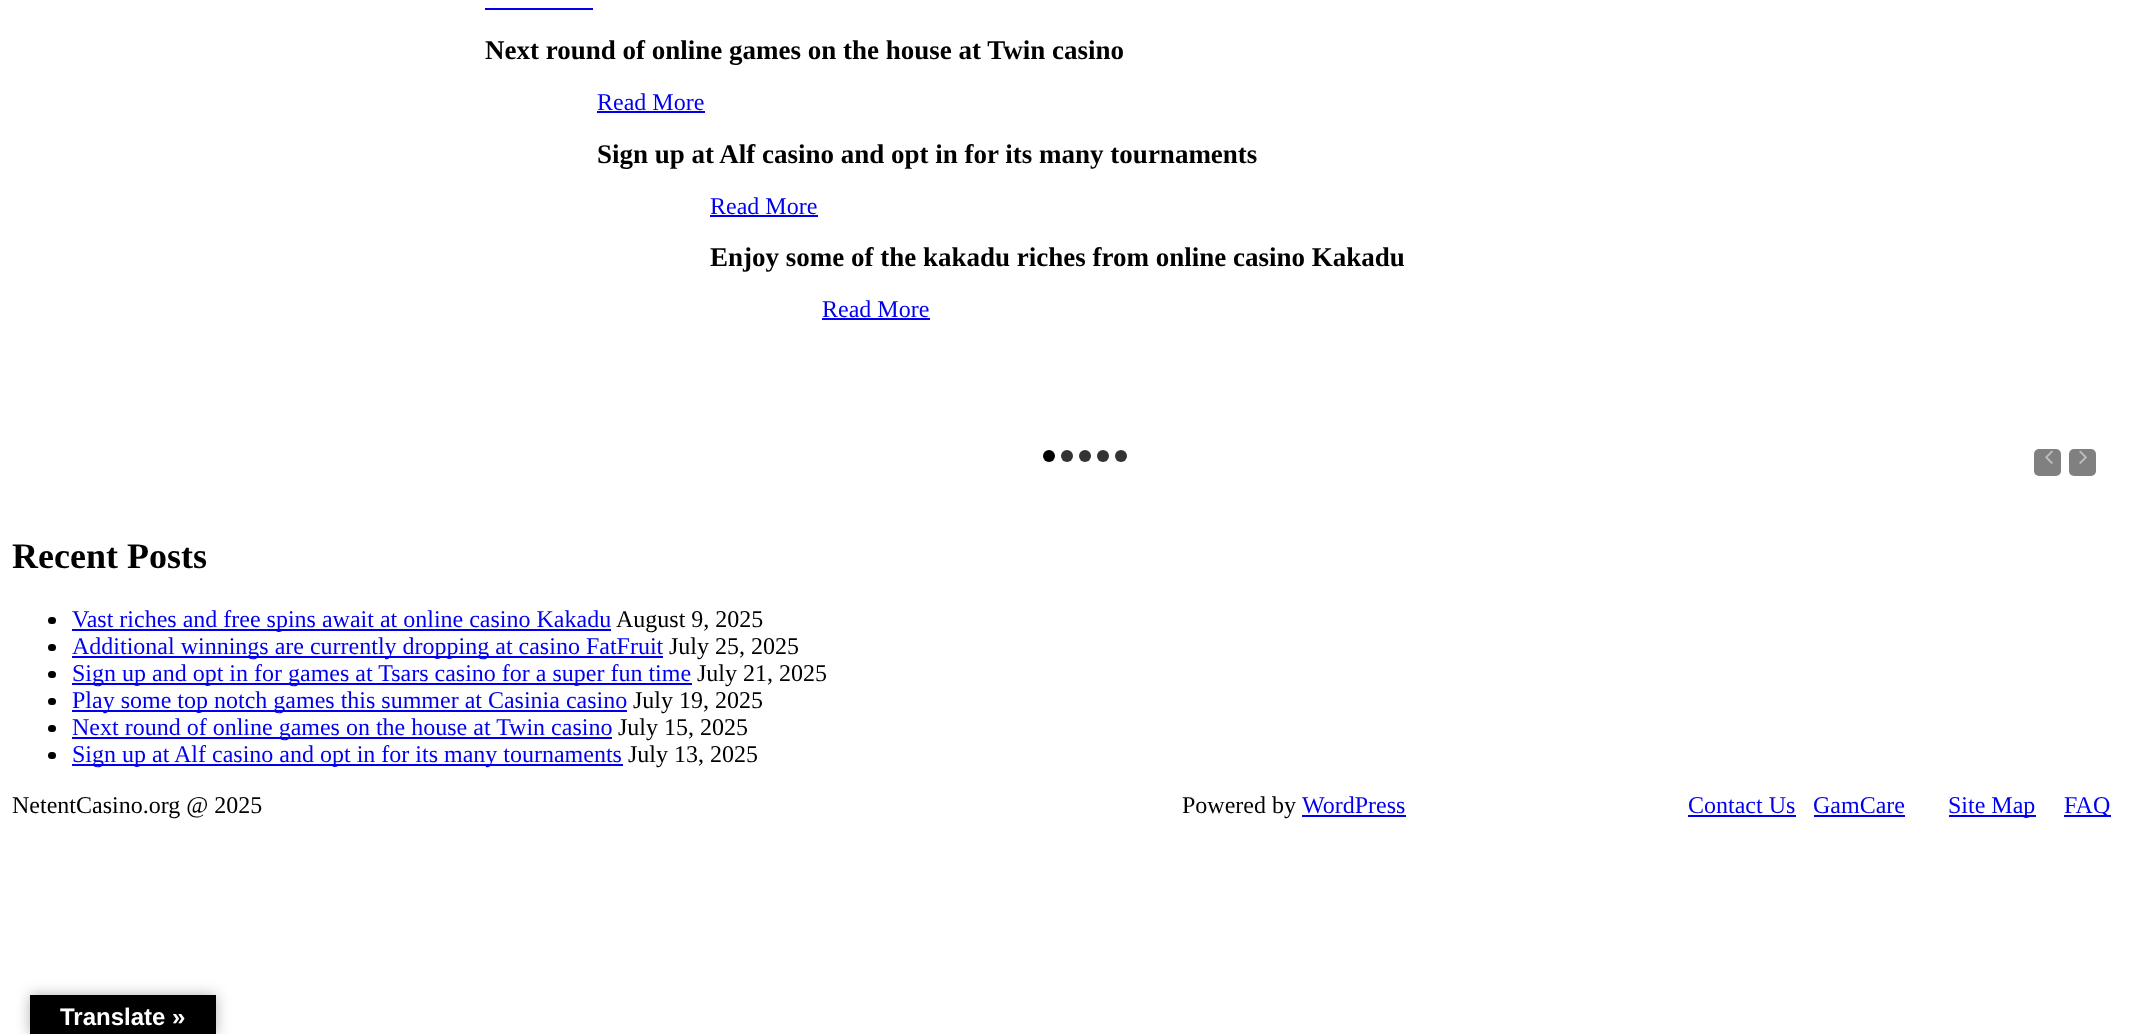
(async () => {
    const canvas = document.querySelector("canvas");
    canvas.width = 2129;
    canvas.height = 1034;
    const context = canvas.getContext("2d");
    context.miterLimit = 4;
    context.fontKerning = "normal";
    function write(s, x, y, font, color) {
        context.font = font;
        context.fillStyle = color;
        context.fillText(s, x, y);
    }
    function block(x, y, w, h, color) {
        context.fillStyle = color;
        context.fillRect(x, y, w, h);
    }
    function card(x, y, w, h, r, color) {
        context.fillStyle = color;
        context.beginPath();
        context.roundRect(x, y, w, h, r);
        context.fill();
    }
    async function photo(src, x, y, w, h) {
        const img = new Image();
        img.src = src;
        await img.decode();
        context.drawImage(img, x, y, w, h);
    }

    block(0, 0, 2129, 1034, "rgb(255, 255, 255)");
    block(485, 8, 108, 2, "rgb(0, 0, 238)");
    write("Next round of online games on the house at Twin casino", 485, 59, "bold 27px Liberation Serif", "rgb(0, 0, 0)");
    write("Read More", 597, 110, "24px Liberation Serif", "rgb(0, 0, 238)");
    block(597, 111, 108, 2, "rgb(0, 0, 238)");
    write("Sign up at Alf casino and opt in for its many tournaments", 597, 163, "bold 27px Liberation Serif", "rgb(0, 0, 0)");
    write("Read More", 710, 214, "24px Liberation Serif", "rgb(0, 0, 238)");
    block(710, 215, 108, 2, "rgb(0, 0, 238)");
    write("Enjoy some of the kakadu riches from online casino Kakadu", 710, 266, "bold 27px Liberation Serif", "rgb(0, 0, 0)");
    write("Read More", 822, 317, "24px Liberation Serif", "rgb(0, 0, 238)");
    block(822, 318, 108, 2, "rgb(0, 0, 238)");
    context.fillStyle = "rgb(0, 0, 0)";
    context.beginPath();
    context.arc(1049, 456, 6, 0, Math.PI * 2);
    context.fill();
    context.fillStyle = "rgb(51, 51, 51)";
    context.beginPath();
    context.arc(1067, 456, 6, 0, Math.PI * 2);
    context.fill();
    context.beginPath();
    context.arc(1085, 456, 6, 0, Math.PI * 2);
    context.fill();
    context.beginPath();
    context.arc(1103, 456, 6, 0, Math.PI * 2);
    context.fill();
    context.beginPath();
    context.arc(1121, 456, 6, 0, Math.PI * 2);
    context.fill();
    card(2034, 449, 27, 27, 5, "rgb(128, 128, 128)");
    await photo("media/1.png", 2045, 450, 8, 14);
    card(2069, 449, 27, 27, 5, "rgb(128, 128, 128)");
    await photo("media/2.png", 2079, 450, 8, 14);
    write("Recent Posts", 12, 568, "bold 36px Liberation Serif", "rgb(0, 0, 0)");
    card(48, 617, 8, 7, 3.5, "rgb(0, 0, 0)");
    block(72, 629, 539, 2, "rgb(0, 0, 238)");
    write("Vast riches and free spins await at online casino Kakadu", 72, 627, "24px Liberation Serif", "rgb(0, 0, 238)");
    write("August 9, 2025", 616, 627, "24px Liberation Serif", "rgb(0, 0, 0)");
    card(48, 644, 8, 7, 3.5, "rgb(0, 0, 0)");
    block(72, 656, 591, 2, "rgb(0, 0, 238)");
    write("Additional winnings are currently dropping at casino FatFruit", 72, 654, "24px Liberation Serif", "rgb(0, 0, 238)");
    write("July 25, 2025", 669, 654, "24px Liberation Serif", "rgb(0, 0, 0)");
    card(48, 671, 8, 7, 3.5, "rgb(0, 0, 0)");
    block(72, 683, 620, 2, "rgb(0, 0, 238)");
    write("Sign up and opt in for games at Tsars casino for a super fun time", 72, 681, "24px Liberation Serif", "rgb(0, 0, 238)");
    write("July 21, 2025", 697, 681, "24px Liberation Serif", "rgb(0, 0, 0)");
    card(48, 698, 8, 7, 3.5, "rgb(0, 0, 0)");
    block(72, 710, 555, 2, "rgb(0, 0, 238)");
    write("Play some top notch games this summer at Casinia casino", 72, 708, "24px Liberation Serif", "rgb(0, 0, 238)");
    write("July 19, 2025", 633, 708, "24px Liberation Serif", "rgb(0, 0, 0)");
    card(48, 725, 8, 7, 3.5, "rgb(0, 0, 0)");
    block(72, 737, 540, 2, "rgb(0, 0, 238)");
    write("Next round of online games on the house at Twin casino", 72, 735, "24px Liberation Serif", "rgb(0, 0, 238)");
    write("July 15, 2025", 618, 735, "24px Liberation Serif", "rgb(0, 0, 0)");
    card(48, 752, 8, 7, 3.5, "rgb(0, 0, 0)");
    block(72, 764, 551, 2, "rgb(0, 0, 238)");
    write("Sign up at Alf casino and opt in for its many tournaments", 72, 762, "24px Liberation Serif", "rgb(0, 0, 238)");
    write("July 13, 2025", 628, 762, "24px Liberation Serif", "rgb(0, 0, 0)");
    write("NetentCasino.org @ 2025", 12, 813, "24px Liberation Serif", "rgb(0, 0, 0)");
    write("Powered by", 1182, 813, "24px Liberation Serif", "rgb(0, 0, 0)");
    write("WordPress", 1302, 813, "24px Liberation Serif", "rgb(0, 0, 238)");
    block(1302, 815, 104, 2, "rgb(0, 0, 238)");
    write("Contact Us", 1688, 813, "24px Liberation Serif", "rgb(0, 0, 238)");
    block(1688, 815, 108, 2, "rgb(0, 0, 238)");
    write("GamCare", 1813, 813, "24px Liberation Serif", "rgb(0, 0, 238)");
    block(1814, 815, 91, 2, "rgb(0, 0, 238)");
    block(1949, 815, 87, 2, "rgb(0, 0, 238)");
    write("Site Map", 1948, 813, "24px Liberation Serif", "rgb(0, 0, 238)");
    block(2064, 815, 47, 2, "rgb(0, 0, 238)");
    write("FAQ", 2064, 813, "24px Liberation Serif", "rgb(0, 0, 238)");
    context.fillStyle = "rgba(0, 0, 0, 0.3)";
    context.filter = "blur(7px)";
    context.beginPath();
    context.rect(30, 995, 186, 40);
    context.fill();
    context.filter = "none";
    block(30, 995, 186, 39, "rgb(0, 0, 0)");
    write("Translate »", 60, 1025, "bold 24px Liberation Sans", "rgb(255, 255, 255)");
})();
